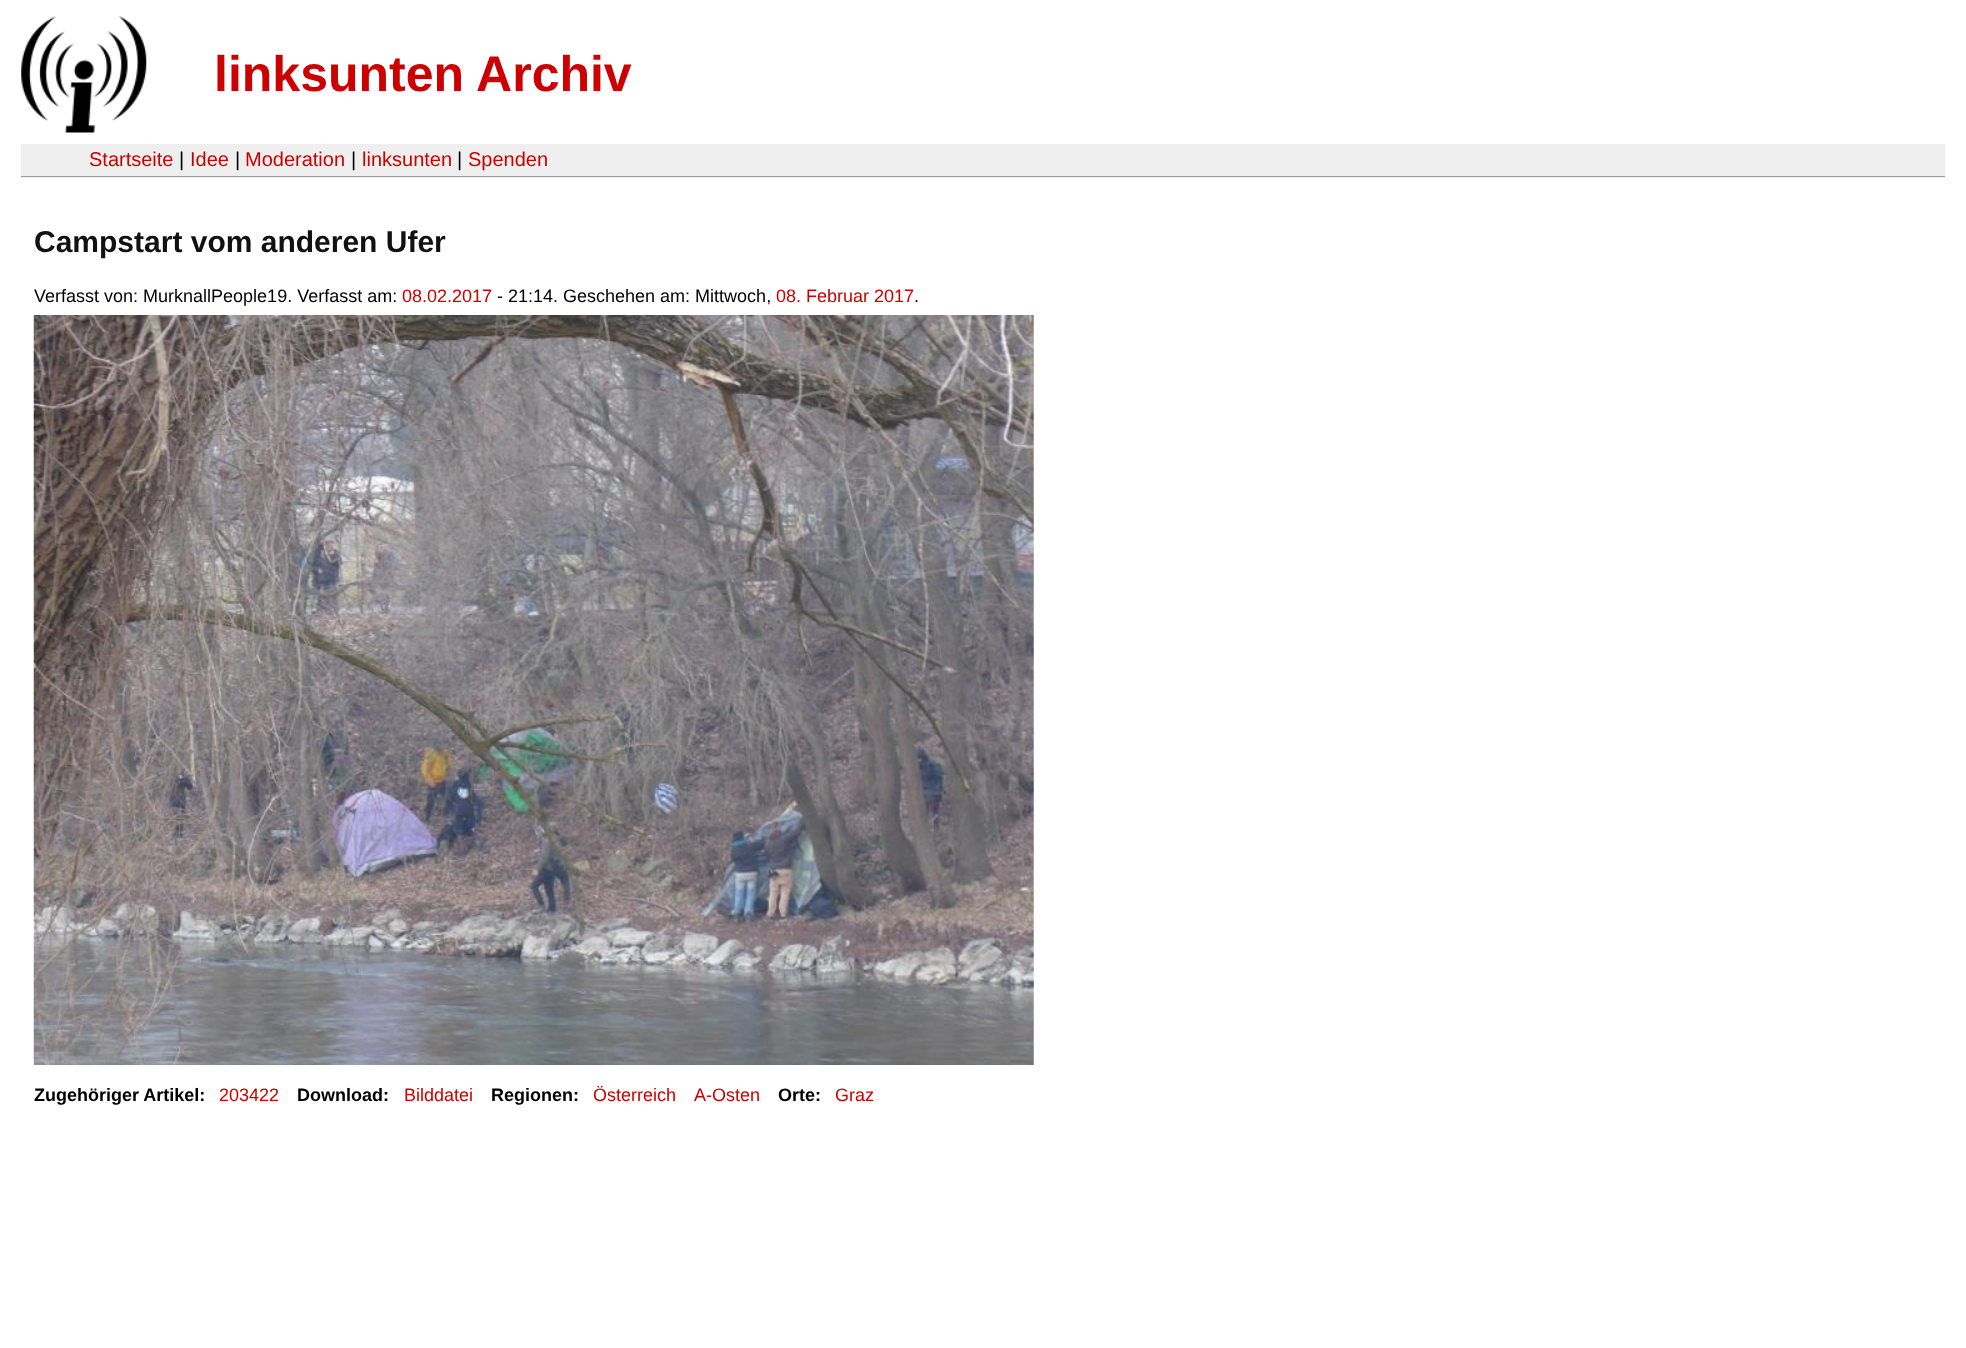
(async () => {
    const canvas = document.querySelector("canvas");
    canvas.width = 1966;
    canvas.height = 1348;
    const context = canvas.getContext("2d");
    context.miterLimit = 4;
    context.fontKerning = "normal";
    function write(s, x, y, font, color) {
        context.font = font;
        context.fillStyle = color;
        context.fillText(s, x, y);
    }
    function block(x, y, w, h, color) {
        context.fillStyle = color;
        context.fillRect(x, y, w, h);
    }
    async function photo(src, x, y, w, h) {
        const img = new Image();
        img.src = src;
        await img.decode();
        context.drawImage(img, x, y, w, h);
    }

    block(0, 0, 1966, 1348, "rgb(255, 255, 255)");
    await photo("media/1.png", 21, 16, 126, 117);
    write("linksunten Archiv", 214, 91, "bold 50px Liberation Sans", "rgb(204, 0, 0)");
    block(21, 144, 1924, 34, "rgb(239, 239, 239)");
    block(21, 176, 1924, 1, "rgb(153, 153, 153)");
    write("Startseite", 89, 166, "20px Liberation Sans", "rgb(204, 0, 0)");
    write("|", 179, 166, "20px Liberation Sans", "rgb(0, 0, 0)");
    write("Idee", 190, 166, "20px Liberation Sans", "rgb(204, 0, 0)");
    write("|", 235, 166, "20px Liberation Sans", "rgb(0, 0, 0)");
    write("Moderation", 245, 166, "20px Liberation Sans", "rgb(204, 0, 0)");
    write("|", 351, 166, "20px Liberation Sans", "rgb(0, 0, 0)");
    write("linksunten", 362, 166, "20px Liberation Sans", "rgb(204, 0, 0)");
    write("|", 457, 166, "20px Liberation Sans", "rgb(0, 0, 0)");
    write("Spenden", 468, 166, "20px Liberation Sans", "rgb(204, 0, 0)");
    write("Campstart vom anderen Ufer", 34, 252, "bold 30px Liberation Sans", "rgb(17, 17, 17)");
    write("Verfasst von: MurknallPeople19. Verfasst am:", 34, 302, "18px Liberation Sans", "rgb(0, 0, 0)");
    write("08.02.2017", 402, 302, "18px Liberation Sans", "rgb(204, 0, 0)");
    write("- 21:14. Geschehen am: Mittwoch,", 497, 302, "18px Liberation Sans", "rgb(0, 0, 0)");
    write("08. Februar 2017", 776, 302, "18px Liberation Sans", "rgb(204, 0, 0)");
    write(".", 914, 302, "18px Liberation Sans", "rgb(0, 0, 0)");
    await photo("media/2.png", 33, 315, 1001, 750);
    write("Zugehöriger Artikel:", 34, 1101, "bold 18px Liberation Sans", "rgb(0, 0, 0)");
    write("203422", 219, 1101, "18px Liberation Sans", "rgb(204, 0, 0)");
    write("Download:", 297, 1101, "bold 18px Liberation Sans", "rgb(0, 0, 0)");
    write("Bilddatei", 404, 1101, "18px Liberation Sans", "rgb(204, 0, 0)");
    write("Regionen:", 491, 1101, "bold 18px Liberation Sans", "rgb(0, 0, 0)");
    write("Österreich", 593, 1101, "18px Liberation Sans", "rgb(204, 0, 0)");
    write("A-Osten", 694, 1101, "18px Liberation Sans", "rgb(204, 0, 0)");
    write("Orte:", 778, 1101, "bold 18px Liberation Sans", "rgb(0, 0, 0)");
    write("Graz", 835, 1101, "18px Liberation Sans", "rgb(204, 0, 0)");
})();
